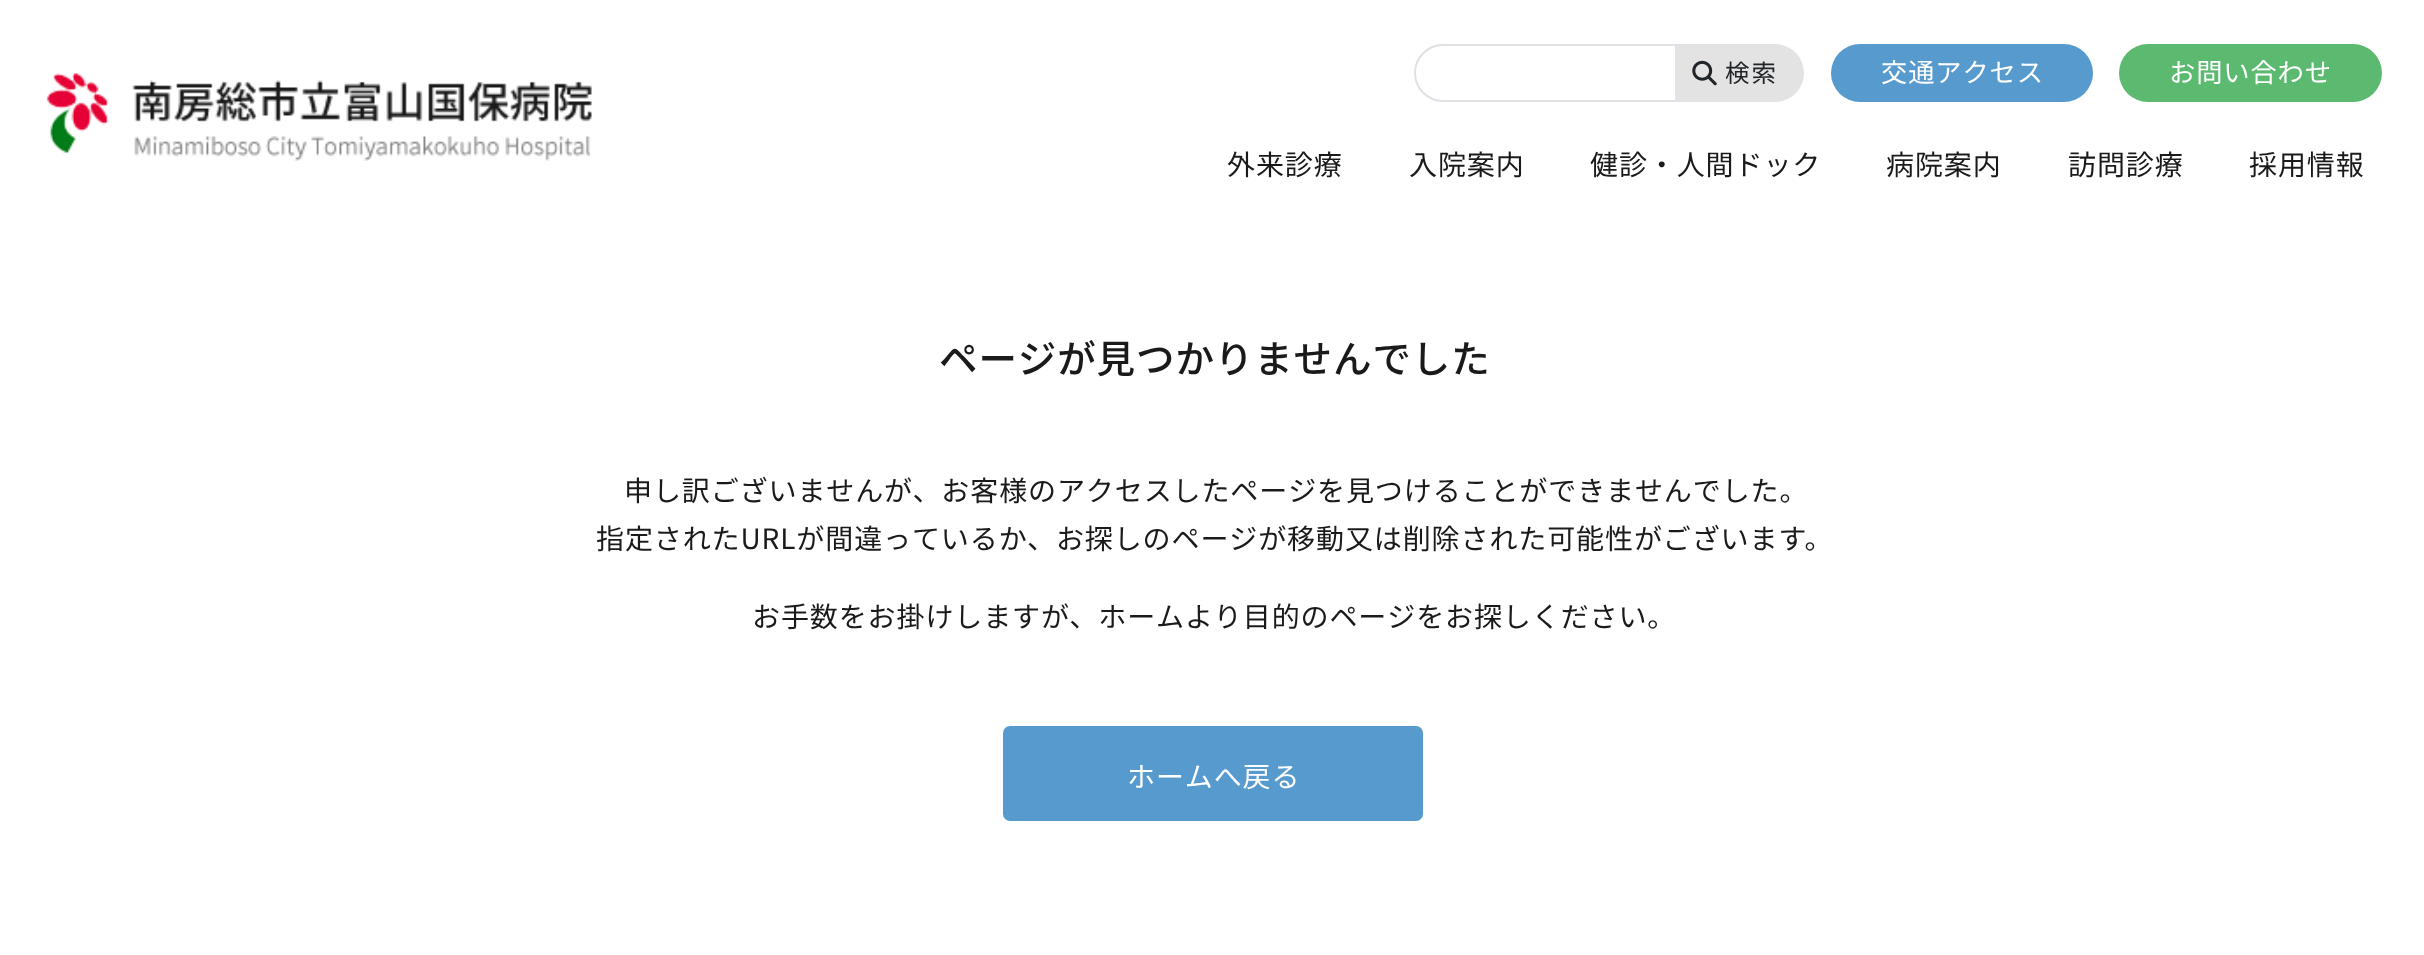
(async () => {
    const canvas = document.querySelector("canvas");
    canvas.width = 2424;
    canvas.height = 955;
    const context = canvas.getContext("2d");
    context.miterLimit = 4;
    context.fontKerning = "normal";
    function write(s, x, y, font, color) {
        context.font = font;
        context.fillStyle = color;
        context.fillText(s, x, y);
    }
    function block(x, y, w, h, color) {
        context.fillStyle = color;
        context.fillRect(x, y, w, h);
    }
    function card(x, y, w, h, r, color) {
        context.fillStyle = color;
        context.beginPath();
        context.roundRect(x, y, w, h, r);
        context.fill();
    }
    async function photo(src, x, y, w, h) {
        const img = new Image();
        img.src = src;
        await img.decode();
        context.drawImage(img, x, y, w, h);
    }

    block(0, 0, 2424, 955, "rgb(255, 255, 255)");
    await photo("media/1.png", 46, 73, 546, 88);
    context.beginPath();
    context.roundRect(1415, 45, 261, 56, [28, 0, 0, 28]);
    context.strokeStyle = "rgb(222, 226, 230)";
    context.lineWidth = 2;
    context.stroke();
    context.fillStyle = "rgb(227, 227, 227)";
    context.beginPath();
    context.roundRect(1675, 44, 129, 58, [0, 29, 29, 0]);
    context.fill();
    await photo("media/2.png", 1692, 60, 25, 26);
    context.letterSpacing = "2px";
    write("検索", 1725, 82, "24.5px Noto Sans JP", "rgb(33, 37, 41)");
    card(1831, 44, 262, 58, 29, "rgb(86, 154, 206)");
    context.letterSpacing = "0.9px";
    write("交通アクセス", 1881, 82, "26.25px Noto Sans JP", "rgb(255, 255, 255)");
    card(2119, 44, 263, 58, 29, "rgb(91, 186, 112)");
    write("お問い合わせ", 2169, 82, "26.25px Noto Sans JP", "rgb(255, 255, 255)");
    write("外来診療", 1227, 175, "28px Noto Sans JP", "rgb(26, 26, 26)");
    write("入院案内", 1409, 175, "28px Noto Sans JP", "rgb(26, 26, 26)");
    write("健診・人間ドック", 1590, 175, "28px Noto Sans JP", "rgb(26, 26, 26)");
    write("病院案内", 1886, 175, "28px Noto Sans JP", "rgb(26, 26, 26)");
    write("訪問診療", 2068, 175, "28px Noto Sans JP", "rgb(26, 26, 26)");
    write("採用情報", 2249, 175, "28px Noto Sans JP", "rgb(26, 26, 26)");
    write("ページが見つかりませんでした", 939, 373, "500 38.5px Noto Sans JP", "rgb(26, 26, 26)");
    write("申し訳ございませんが、お客様のアクセスしたページを見つけることができませんでした。", 624, 501, "28px Noto Sans JP", "rgb(26, 26, 26)");
    write("指定されたURLが間違っているか、お探しのページが移動又は削除された可能性がございます。", 596, 549, "28px Noto Sans JP", "rgb(26, 26, 26)");
    write("お手数をお掛けしますが、ホームより目的のページをお探しください。", 752, 627, "28px Noto Sans JP", "rgb(26, 26, 26)");
    card(1003, 726, 420, 95, 7, "rgb(86, 154, 206)");
    write("ホームへ戻る", 1127, 787, "28px Noto Sans JP", "rgb(255, 255, 255)");
})();
